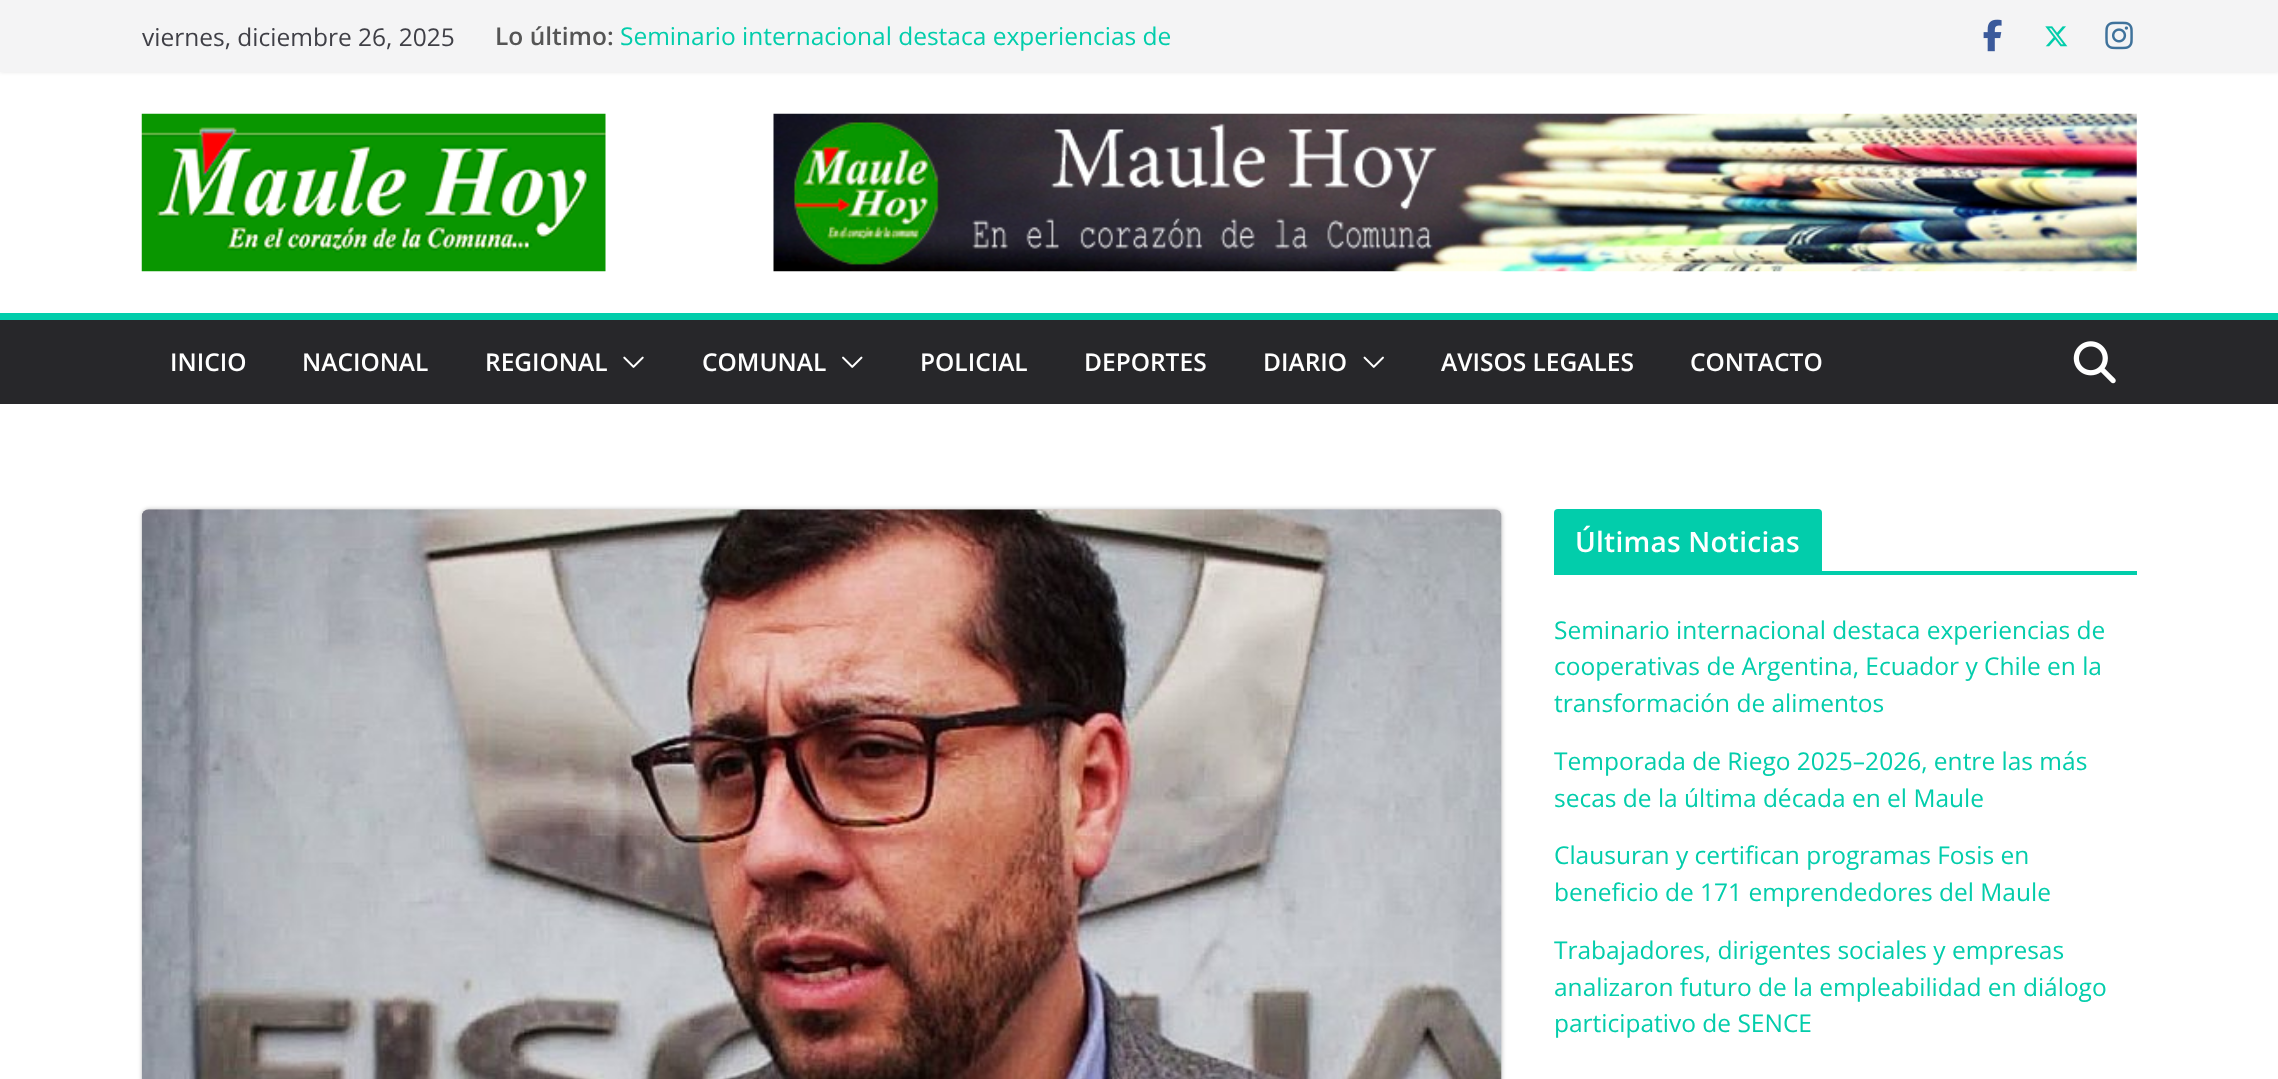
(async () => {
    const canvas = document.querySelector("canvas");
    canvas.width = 2278;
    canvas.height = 1079;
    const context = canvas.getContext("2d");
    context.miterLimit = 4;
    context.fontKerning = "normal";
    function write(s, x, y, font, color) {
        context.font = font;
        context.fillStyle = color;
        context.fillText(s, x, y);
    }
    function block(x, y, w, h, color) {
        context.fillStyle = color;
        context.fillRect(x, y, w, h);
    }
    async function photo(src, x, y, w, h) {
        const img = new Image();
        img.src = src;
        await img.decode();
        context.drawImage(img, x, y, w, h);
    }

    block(0, 0, 2278, 1079, "rgb(255, 255, 255)");
    context.fillStyle = "rgba(0, 0, 0, 0.1)";
    context.filter = "blur(2px)";
    context.beginPath();
    context.rect(0, 0, 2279, 72);
    context.fill();
    context.filter = "none";
    block(0, 0, 2278, 72, "rgb(244, 244, 245)");
    write("viernes, diciembre 26, 2025", 142, 46, "24.5px Open Sans", "rgb(63, 63, 70)");
    write("Lo último:", 495, 45, "600 24.5px Open Sans", "rgb(85, 85, 85)");
    write("Seminario internacional destaca experiencias de", 620, 45, "24.5px Open Sans", "rgb(2, 205, 171)");
    await photo("media/1.png", 1983, 19, 19, 33);
    await photo("media/2.png", 2045, 26, 23, 21);
    await photo("media/3.png", 2105, 21, 28, 29);
    await photo("media/4.png", 141, 113, 465, 159);
    await photo("media/5.png", 773, 113, 1364, 159);
    block(0, 320, 2278, 84, "rgb(39, 39, 42)");
    block(0, 313, 2278, 7, "rgb(2, 205, 171)");
    write("INICIO", 170, 371, "600 24.5px Open Sans", "rgb(255, 255, 255)");
    write("NACIONAL", 302, 371, "600 24.5px Open Sans", "rgb(255, 255, 255)");
    write("REGIONAL", 485, 371, "600 24.5px Open Sans", "rgb(255, 255, 255)");
    await photo("media/6.png", 623, 356, 21, 12);
    write("COMUNAL", 702, 371, "600 24.5px Open Sans", "rgb(255, 255, 255)");
    await photo("media/7.png", 842, 356, 21, 12);
    write("POLICIAL", 920, 371, "600 24.5px Open Sans", "rgb(255, 255, 255)");
    write("DEPORTES", 1084, 371, "600 24.5px Open Sans", "rgb(255, 255, 255)");
    write("DIARIO", 1263, 371, "600 24.5px Open Sans", "rgb(255, 255, 255)");
    await photo("media/8.png", 1363, 356, 21, 12);
    write("AVISOS LEGALES", 1441, 371, "600 24.5px Open Sans", "rgb(255, 255, 255)");
    write("CONTACTO", 1690, 371, "600 24.5px Open Sans", "rgb(255, 255, 255)");
    await photo("media/9.png", 2073, 341, 43, 43);
    context.fillStyle = "rgba(0, 0, 0, 0.24)";
    context.filter = "blur(2px)";
    context.beginPath();
    context.roundRect(142, 509, 1360, 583, 7);
    context.fill();
    context.filter = "none";
    await photo("media/10.png", 141, 509, 1361, 570);
    block(1554, 571, 583, 4, "rgb(2, 205, 171)");
    context.beginPath();
    context.roundRect(1554, 509, 268, 62, [4, 4, 0, 0]);
    context.fill();
    context.letterSpacing = "0.25px";
    write("Últimas Noticias", 1575, 552, "600 28px Open Sans", "rgb(255, 255, 255)");
    context.letterSpacing = "0px";
    write("Seminario internacional destaca experiencias de", 1554, 639, "24.5px Open Sans", "rgb(2, 205, 171)");
    write("cooperativas de Argentina, Ecuador y Chile en la", 1554, 675, "24.5px Open Sans", "rgb(2, 205, 171)");
    write("transformación de alimentos", 1554, 712, "24.5px Open Sans", "rgb(2, 205, 171)");
    write("Temporada de Riego 2025–2026, entre las más", 1554, 770, "24.5px Open Sans", "rgb(2, 205, 171)");
    write("secas de la última década en el Maule", 1554, 807, "24.5px Open Sans", "rgb(2, 205, 171)");
    write("Clausuran y certifican programas Fosis en", 1554, 864, "24.5px Open Sans", "rgb(2, 205, 171)");
    write("beneficio de 171 emprendedores del Maule", 1554, 901, "24.5px Open Sans", "rgb(2, 205, 171)");
    write("Trabajadores, dirigentes sociales y empresas", 1554, 959, "24.5px Open Sans", "rgb(2, 205, 171)");
    write("analizaron futuro de la empleabilidad en diálogo", 1554, 996, "24.5px Open Sans", "rgb(2, 205, 171)");
    write("participativo de SENCE", 1554, 1032, "24.5px Open Sans", "rgb(2, 205, 171)");
})();
